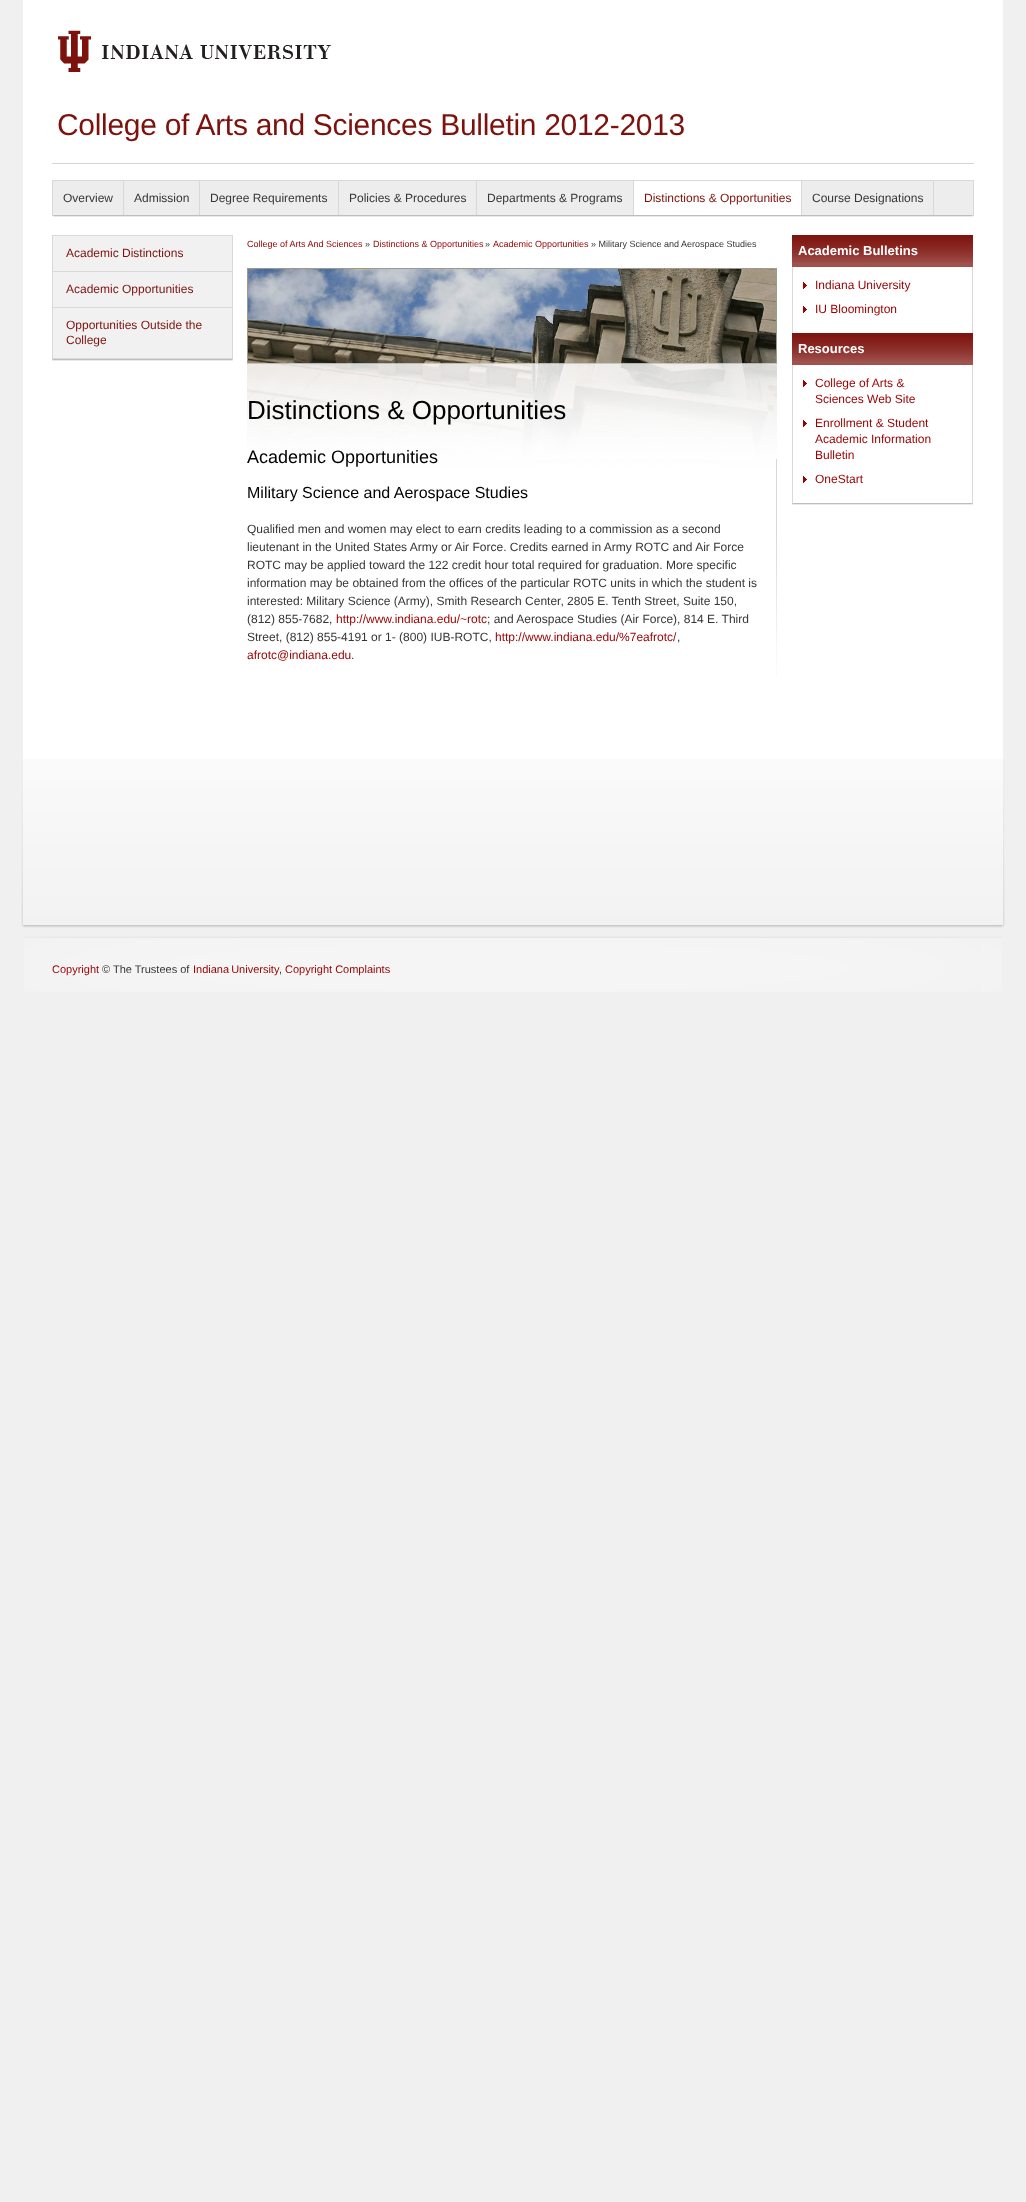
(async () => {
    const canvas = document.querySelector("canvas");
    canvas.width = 1026;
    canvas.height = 2202;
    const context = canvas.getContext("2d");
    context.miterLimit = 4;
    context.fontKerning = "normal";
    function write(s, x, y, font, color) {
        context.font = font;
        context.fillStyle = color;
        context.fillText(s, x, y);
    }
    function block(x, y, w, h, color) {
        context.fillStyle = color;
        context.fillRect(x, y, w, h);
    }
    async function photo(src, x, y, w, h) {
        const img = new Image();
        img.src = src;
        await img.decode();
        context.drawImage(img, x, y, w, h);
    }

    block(0, 0, 1026, 2202, "rgb(240, 240, 240)");
    block(23, 0, 980, 759, "rgb(255, 255, 255)");
    await photo("media/1.png", 21, 759, 984, 169);
    block(52, 163, 922, 1, "rgb(213, 213, 213)");
    await photo("media/2.png", 58, 30, 273, 42);
    context.letterSpacing = "-0.3px";
    write("College of Arts and Sciences Bulletin 2012-2013", 57, 135, "30px Liberation Sans", "rgb(125, 17, 12)");
    block(53, 181, 920, 34, "rgb(237, 237, 237)");
    await photo("media/3.png", 52, 215, 922, 2);
    block(52, 180, 922, 1, "rgb(217, 217, 217)");
    block(973, 180, 1, 35, "rgb(217, 217, 217)");
    block(52, 180, 1, 35, "rgb(217, 217, 217)");
    block(123, 181, 1, 34, "rgb(217, 217, 217)");
    context.letterSpacing = "0px";
    write("Overview", 63, 202, "12px Liberation Sans", "rgb(54, 54, 54)");
    block(199, 181, 1, 34, "rgb(217, 217, 217)");
    write("Admission", 134, 202, "12px Liberation Sans", "rgb(54, 54, 54)");
    block(338, 181, 1, 34, "rgb(217, 217, 217)");
    write("Degree Requirements", 210, 202, "12px Liberation Sans", "rgb(54, 54, 54)");
    block(476, 181, 1, 34, "rgb(217, 217, 217)");
    write("Policies & Procedures", 349, 202, "12px Liberation Sans", "rgb(54, 54, 54)");
    block(633, 181, 1, 34, "rgb(217, 217, 217)");
    write("Departments & Programs", 487, 202, "12px Liberation Sans", "rgb(54, 54, 54)");
    block(634, 181, 167, 34, "rgb(255, 255, 255)");
    block(801, 181, 1, 34, "rgb(217, 217, 217)");
    write("Distinctions & Opportunities", 644, 202, "12px Liberation Sans", "rgb(125, 17, 12)");
    block(933, 181, 1, 34, "rgb(217, 217, 217)");
    write("Course Designations", 812, 202, "12px Liberation Sans", "rgb(54, 54, 54)");
    await photo("media/4.png", 52, 359, 181, 2);
    block(52, 235, 181, 1, "rgb(217, 217, 217)");
    block(232, 235, 1, 124, "rgb(217, 217, 217)");
    block(52, 235, 1, 124, "rgb(217, 217, 217)");
    block(53, 236, 179, 35, "rgb(241, 241, 241)");
    block(53, 271, 179, 1, "rgb(217, 217, 217)");
    write("Academic Distinctions", 66, 257, "12px Liberation Sans", "rgb(125, 17, 12)");
    block(53, 272, 179, 35, "rgb(241, 241, 241)");
    block(53, 307, 179, 1, "rgb(217, 217, 217)");
    write("Academic Opportunities", 66, 293, "12px Liberation Sans", "rgb(125, 17, 12)");
    block(53, 308, 179, 50, "rgb(241, 241, 241)");
    block(53, 358, 179, 1, "rgb(217, 217, 217)");
    write("Opportunities Outside the", 66, 329, "12px Liberation Sans", "rgb(125, 17, 12)");
    write("College", 66, 344, "12px Liberation Sans", "rgb(125, 17, 12)");
    write("College of Arts And Sciences", 247, 247, "9px Liberation Sans", "rgb(153, 0, 0)");
    write("»", 365, 247, "9px Liberation Sans", "rgb(54, 54, 54)");
    write("Distinctions & Opportunities", 373, 247, "9px Liberation Sans", "rgb(153, 0, 0)");
    write("»", 485, 247, "9px Liberation Sans", "rgb(54, 54, 54)");
    write("Academic Opportunities", 493, 247, "9px Liberation Sans", "rgb(153, 0, 0)");
    write("» Military Science and Aerospace Studies", 591, 247, "9px Liberation Sans", "rgb(54, 54, 54)");
    await photo("media/5.png", 247, 268, 530, 408);
    write("Distinctions & Opportunities", 247, 419, "26px Liberation Sans", "rgb(0, 0, 0)");
    write("Academic Opportunities", 247, 463, "18px Liberation Sans", "rgb(0, 0, 0)");
    write("Military Science and Aerospace Studies", 247, 498, "16px Liberation Sans", "rgb(0, 0, 0)");
    write("Qualified men and women may elect to earn credits leading to a commission as a second", 247, 533, "12px Liberation Sans", "rgb(54, 54, 54)");
    write("lieutenant in the United States Army or Air Force. Credits earned in Army ROTC and Air Force", 247, 551, "12px Liberation Sans", "rgb(54, 54, 54)");
    write("ROTC may be applied toward the 122 credit hour total required for graduation. More specific", 247, 569, "12px Liberation Sans", "rgb(54, 54, 54)");
    write("information may be obtained from the offices of the particular ROTC units in which the student is", 247, 587, "12px Liberation Sans", "rgb(54, 54, 54)");
    write("interested: Military Science (Army), Smith Research Center, 2805 E. Tenth Street, Suite 150,", 247, 605, "12px Liberation Sans", "rgb(54, 54, 54)");
    write("(812) 855-7682,", 247, 623, "12px Liberation Sans", "rgb(54, 54, 54)");
    write("http://www.indiana.edu/~rotc", 336, 623, "12px Liberation Sans", "rgb(153, 0, 0)");
    write("; and Aerospace Studies (Air Force), 814 E. Third", 487, 623, "12px Liberation Sans", "rgb(54, 54, 54)");
    write("Street, (812) 855-4191 or 1- (800) IUB-ROTC,", 247, 641, "12px Liberation Sans", "rgb(54, 54, 54)");
    write("http://www.indiana.edu/%7eafrotc/", 495, 641, "12px Liberation Sans", "rgb(153, 0, 0)");
    write(",", 677, 641, "12px Liberation Sans", "rgb(54, 54, 54)");
    write("afrotc@indiana.edu", 247, 659, "12px Liberation Sans", "rgb(153, 0, 0)");
    write(".", 351, 659, "12px Liberation Sans", "rgb(54, 54, 54)");
    await photo("media/4.png", 792, 503, 181, 2);
    block(972, 267, 1, 66, "rgb(217, 217, 217)");
    block(792, 267, 1, 66, "rgb(217, 217, 217)");
    block(792, 263, 181, 4, "rgb(160, 82, 78)");
    await photo("media/6.png", 792, 235, 181, 28);
    write("Academic Bulletins", 798, 255, "bold 13px Liberation Sans", "rgb(255, 255, 255)");
    await photo("media/7.png", 803, 282, 4, 7);
    write("Indiana University", 815, 289, "12px Liberation Sans", "rgb(153, 0, 0)");
    await photo("media/7.png", 803, 306, 4, 7);
    write("IU Bloomington", 815, 313, "12px Liberation Sans", "rgb(153, 0, 0)");
    block(972, 365, 1, 138, "rgb(217, 217, 217)");
    block(792, 365, 1, 138, "rgb(217, 217, 217)");
    block(792, 361, 181, 4, "rgb(160, 82, 78)");
    await photo("media/6.png", 792, 333, 181, 28);
    write("Resources", 798, 353, "bold 13px Liberation Sans", "rgb(255, 255, 255)");
    await photo("media/7.png", 803, 380, 4, 7);
    write("College of Arts &", 815, 387, "12px Liberation Sans", "rgb(153, 0, 0)");
    write("Sciences Web Site", 815, 403, "12px Liberation Sans", "rgb(153, 0, 0)");
    await photo("media/7.png", 803, 420, 4, 7);
    write("Enrollment & Student", 815, 427, "12px Liberation Sans", "rgb(153, 0, 0)");
    write("Academic Information", 815, 443, "12px Liberation Sans", "rgb(153, 0, 0)");
    write("Bulletin", 815, 459, "12px Liberation Sans", "rgb(153, 0, 0)");
    await photo("media/7.png", 803, 476, 4, 7);
    write("OneStart", 815, 483, "12px Liberation Sans", "rgb(153, 0, 0)");
    await photo("media/8.png", 24, 936, 978, 56);
    write("Copyright", 52, 973, "11px Liberation Sans", "rgb(153, 0, 0)");
    write("© The Trustees of", 102, 973, "11px Liberation Sans", "rgb(54, 54, 54)");
    context.wordSpacing = "-1px";
    write("Indiana University", 193, 973, "11px Liberation Sans", "rgb(153, 0, 0)");
    context.wordSpacing = "0px";
    write(",", 279, 973, "11px Liberation Sans", "rgb(54, 54, 54)");
    write("Copyright Complaints", 285, 973, "11px Liberation Sans", "rgb(153, 0, 0)");
})();
